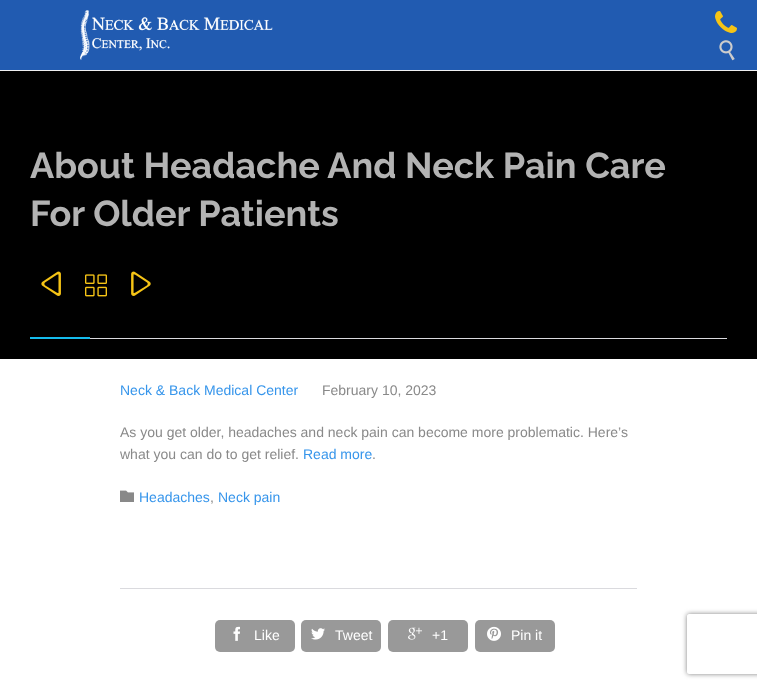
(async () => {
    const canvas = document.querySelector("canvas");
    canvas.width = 757;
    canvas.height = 688;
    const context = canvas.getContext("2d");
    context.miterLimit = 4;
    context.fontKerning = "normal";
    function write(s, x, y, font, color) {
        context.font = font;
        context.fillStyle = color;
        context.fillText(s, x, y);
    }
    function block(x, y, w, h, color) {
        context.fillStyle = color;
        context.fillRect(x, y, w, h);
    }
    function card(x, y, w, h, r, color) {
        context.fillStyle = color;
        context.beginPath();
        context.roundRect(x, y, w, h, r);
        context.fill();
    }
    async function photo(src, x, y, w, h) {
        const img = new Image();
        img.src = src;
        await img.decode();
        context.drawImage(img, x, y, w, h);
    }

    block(0, 0, 757, 688, "rgb(0, 0, 0)");
    block(0, 0, 757, 70, "rgb(33, 91, 177)");
    block(0, 70, 757, 1, "rgb(240, 240, 241)");
    await photo("media/1.png", 80, 10, 193, 50);
    await photo("media/2.png", 715, 11, 22, 22);
    await photo("media/3.png", 719, 40, 16, 21);
    block(90, 338, 637, 1, "rgb(218, 218, 222)");
    write("About Headache And Neck Pain Care", 30, 178, "bold 36px Raleway", "rgb(179, 179, 179)");
    write("For Older Patients", 30, 226, "bold 36px Raleway", "rgb(179, 179, 179)");
    await photo("media/4.png", 41, 271, 20, 25);
    await photo("media/5.png", 85, 274, 22, 23);
    await photo("media/6.png", 131, 271, 20, 25);
    block(30, 337, 60, 2, "rgb(21, 187, 236)");
    block(0, 359, 757, 329, "rgb(255, 255, 255)");
    write("Neck & Back Medical Center", 120, 395, "14px Liberation Sans", "rgb(54, 149, 235)");
    write("February 10, 2023", 322, 395, "14px Liberation Sans", "rgb(137, 137, 137)");
    write("As you get older, headaches and neck pain can become more problematic. Here’s", 120, 437, "14px Liberation Sans", "rgb(137, 137, 137)");
    write("what you can do to get relief.", 120, 459, "14px Liberation Sans", "rgb(137, 137, 137)");
    write("Read more", 303, 459, "14px Liberation Sans", "rgb(54, 149, 235)");
    write(".", 372, 459, "14px Liberation Sans", "rgb(137, 137, 137)");
    await photo("media/7.png", 120, 490, 14, 12);
    write("Headaches", 139, 502, "14px Liberation Sans", "rgb(54, 149, 235)");
    write(",", 210, 502, "14px Liberation Sans", "rgb(137, 137, 137)");
    write("Neck pain", 218, 502, "14px Liberation Sans", "rgb(54, 149, 235)");
    block(120, 588, 517, 1, "rgb(218, 218, 222)");
    card(215, 620, 80, 32, 5, "rgb(153, 153, 153)");
    await photo("media/8.png", 233, 626, 7, 15);
    write("Like", 254, 640, "14px Liberation Sans", "rgb(255, 255, 255)");
    card(301, 620, 80, 32, 5, "rgb(153, 153, 153)");
    await photo("media/9.png", 311, 628, 14, 12);
    write("Tweet", 335, 640, "14px Liberation Sans", "rgb(255, 255, 255)");
    card(388, 620, 80, 32, 5, "rgb(153, 153, 153)");
    await photo("media/10.png", 408, 627, 14, 13);
    write("+1", 432, 640, "14px Liberation Sans", "rgb(255, 255, 255)");
    card(475, 620, 80, 32, 5, "rgb(153, 153, 153)");
    await photo("media/11.png", 487, 626, 14, 15);
    write("Pin it", 511, 640, "14px Liberation Sans", "rgb(255, 255, 255)");
    context.save();
    context.beginPath();
    context.moveTo(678, 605);
    context.lineTo(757, 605);
    context.lineTo(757, 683);
    context.lineTo(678, 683);
    context.closePath();
    context.moveTo(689, 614);
    context.lineTo(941, 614);
    context.bezierCurveTo(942, 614, 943, 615, 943, 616);
    context.lineTo(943, 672);
    context.bezierCurveTo(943, 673, 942, 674, 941, 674);
    context.lineTo(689, 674);
    context.bezierCurveTo(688, 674, 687, 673, 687, 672);
    context.lineTo(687, 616);
    context.bezierCurveTo(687, 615, 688, 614, 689, 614);
    context.closePath();
    context.clip("evenodd");
    context.fillStyle = "rgb(128, 128, 128)";
    context.filter = "blur(2.5px)";
    context.beginPath();
    context.roundRect(687, 614, 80, 60, 2);
    context.fill();
    context.filter = "none";
    context.restore();
})();
